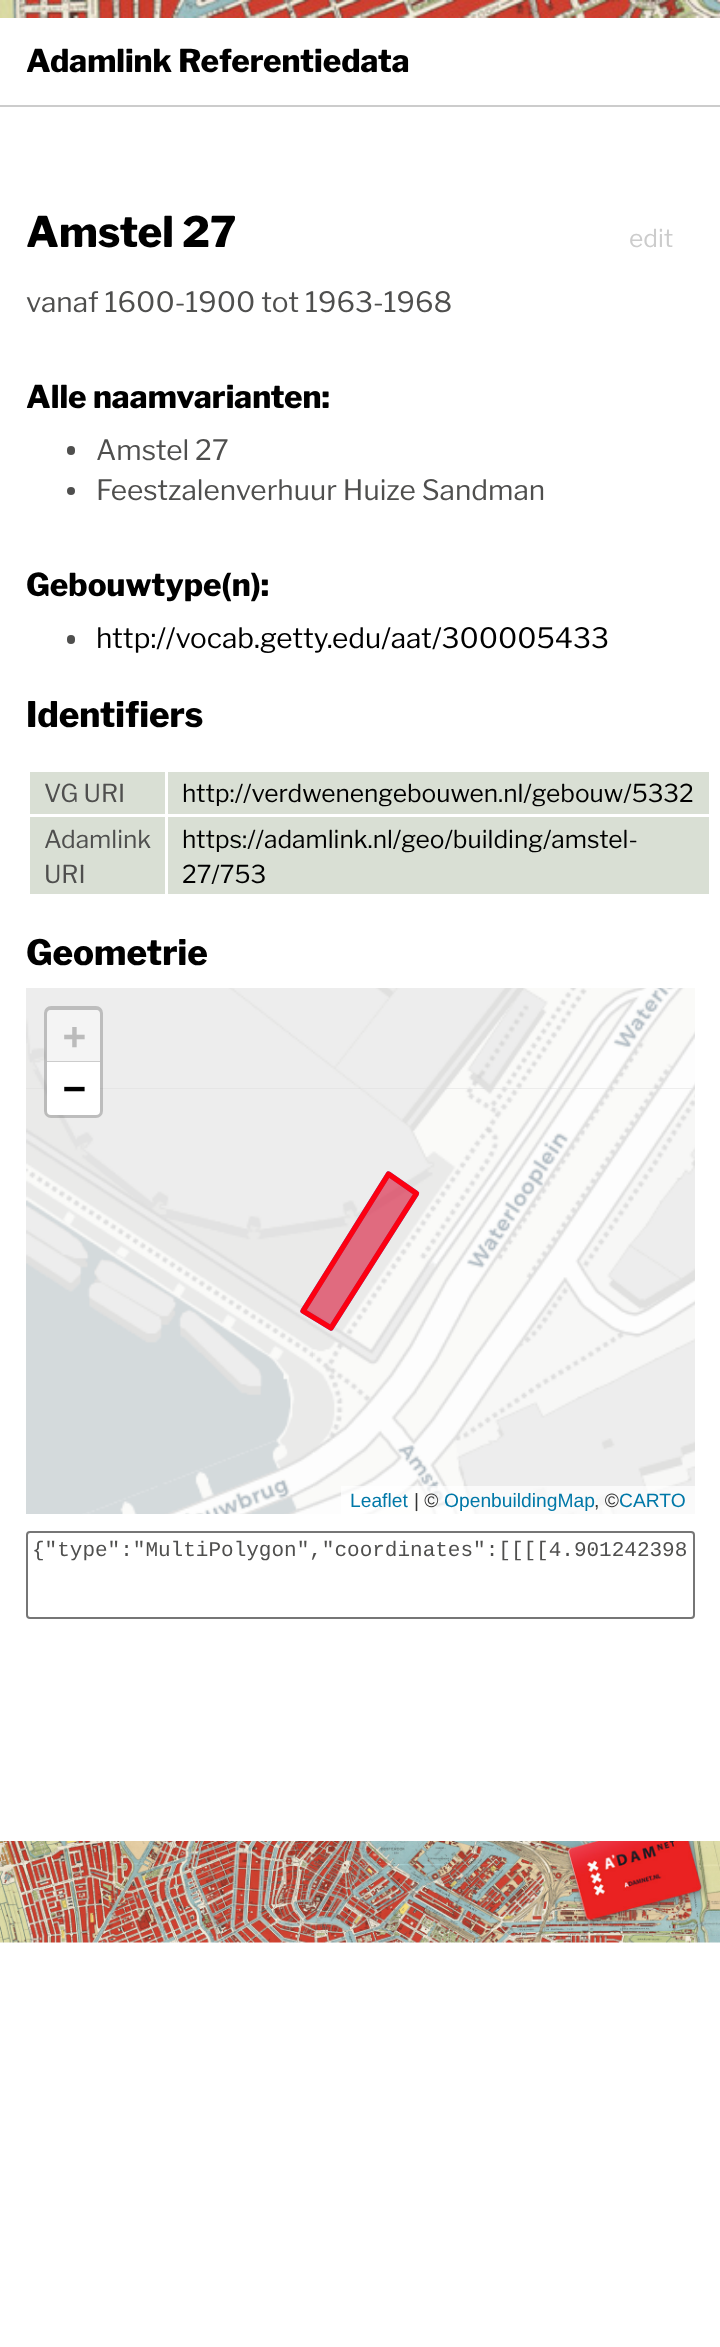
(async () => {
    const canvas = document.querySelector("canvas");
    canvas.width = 720;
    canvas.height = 2347;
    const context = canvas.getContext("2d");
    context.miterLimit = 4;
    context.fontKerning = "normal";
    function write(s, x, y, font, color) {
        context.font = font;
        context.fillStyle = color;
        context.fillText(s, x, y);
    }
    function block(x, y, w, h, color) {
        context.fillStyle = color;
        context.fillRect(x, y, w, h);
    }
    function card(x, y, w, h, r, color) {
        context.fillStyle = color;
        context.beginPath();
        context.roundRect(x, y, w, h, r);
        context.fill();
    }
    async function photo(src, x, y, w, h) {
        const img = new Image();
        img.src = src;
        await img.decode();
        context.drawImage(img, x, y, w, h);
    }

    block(0, 0, 720, 2347, "rgb(255, 255, 255)");
    block(0, 105, 720, 2, "rgb(204, 204, 204)");
    await photo("media/1.png", 0, 0, 720, 18);
    write("Adamlink Referentiedata", 26, 72, "800 31.5px Libre Franklin", "rgb(0, 0, 0)");
    write("Amstel 27", 26, 247, "800 42px Libre Franklin", "rgb(0, 0, 0)");
    write("edit", 629, 247, "24.5px Libre Franklin", "rgb(204, 204, 204)");
    write("vanaf 1600-1900 tot 1963-1968", 26, 312, "28px Libre Franklin", "rgb(79, 79, 78)");
    write("Alle naamvarianten:", 26, 408, "800 31.5px Libre Franklin", "rgb(0, 0, 0)");
    card(67, 446, 8, 9, 4, "rgb(79, 79, 78)");
    write("Amstel 27", 96, 460, "28px Libre Franklin", "rgb(79, 79, 78)");
    context.beginPath();
    context.arc(71, 491, 4, 0, Math.PI * 2);
    context.fill();
    write("Feestzalenverhuur Huize Sandman", 96, 500, "28px Libre Franklin", "rgb(79, 79, 78)");
    write("Gebouwtype(n):", 26, 596, "800 31.5px Libre Franklin", "rgb(0, 0, 0)");
    card(67, 635, 8, 9, 4, "rgb(79, 79, 78)");
    write("http://vocab.getty.edu/aat/300005433", 96, 648, "28px Libre Franklin", "rgb(0, 0, 0)");
    write("Identifiers", 26, 727, "800 35px Libre Franklin", "rgb(0, 0, 0)");
    block(30, 772, 135, 42, "rgb(217, 223, 212)");
    write("VG URI", 44, 802, "24.5px Libre Franklin", "rgb(79, 79, 78)");
    block(168, 772, 541, 42, "rgb(217, 223, 212)");
    write("http://verdwenengebouwen.nl/gebouw/5332", 182, 802, "24.5px Libre Franklin", "rgb(0, 0, 0)");
    block(30, 817, 135, 77, "rgb(217, 223, 212)");
    write("Adamlink", 44, 848, "24.5px Libre Franklin", "rgb(79, 79, 78)");
    write("URI", 44, 883, "24.5px Libre Franklin", "rgb(79, 79, 78)");
    block(168, 817, 541, 77, "rgb(217, 223, 212)");
    write("https://adamlink.nl/geo/building/amstel-", 182, 848, "24.5px Libre Franklin", "rgb(0, 0, 0)");
    write("27/753", 182, 883, "24.5px Libre Franklin", "rgb(0, 0, 0)");
    write("Geometrie", 26, 965, "800 35px Libre Franklin", "rgb(0, 0, 0)");
    block(26, 1088, 669, 1, "rgb(221, 221, 221)");
    await photo("media/2.png", 26, 988, 287, 101);
    await photo("media/3.png", 313, 988, 382, 101);
    await photo("media/4.png", 26, 1089, 287, 425);
    await photo("media/5.png", 313, 1089, 382, 425);
    context.fillStyle = "rgba(51, 136, 255, 0.2)";
    context.beginPath();
    context.moveTo(303, 1311);
    context.lineTo(388, 1174);
    context.lineTo(416, 1194);
    context.lineTo(331, 1328);
    context.closePath();
    context.fill("evenodd");
    context.beginPath();
    context.moveTo(303, 1311);
    context.lineTo(388.5, 1174);
    context.lineTo(416.5, 1193.5);
    context.lineTo(331, 1328);
    context.closePath();
    context.strokeStyle = "rgb(51, 136, 255)";
    context.lineWidth = 5.2;
    context.lineCap = "round";
    context.lineJoin = "round";
    context.stroke();
    context.fillStyle = "rgba(252, 0, 17, 0.5)";
    context.beginPath();
    context.moveTo(303, 1311);
    context.lineTo(388, 1174);
    context.lineTo(416, 1194);
    context.lineTo(331, 1328);
    context.closePath();
    context.fill("evenodd");
    context.beginPath();
    context.moveTo(303, 1311);
    context.lineTo(388.5, 1174);
    context.lineTo(416.5, 1193.5);
    context.lineTo(331, 1328);
    context.closePath();
    context.strokeStyle = "rgb(252, 0, 17)";
    context.stroke();
    context.beginPath();
    context.roundRect(46, 1008, 55, 108, 5);
    context.strokeStyle = "rgba(0, 0, 0, 0.2)";
    context.lineWidth = 4;
    context.lineJoin = "miter";
    context.stroke();
    context.fillStyle = "rgb(244, 244, 244)";
    context.beginPath();
    context.roundRect(47, 1010, 53, 52, [4, 4, 0, 0]);
    context.fill();
    block(47, 1061, 53, 1, "rgb(204, 204, 204)");
    write("+", 63, 1049, "bold 38px DejaVu Sans Mono", "rgb(187, 187, 187)");
    context.fillStyle = "rgb(255, 255, 255)";
    context.beginPath();
    context.roundRect(47, 1062, 53, 53, [0, 0, 4, 4]);
    context.fill();
    write("−", 63, 1101, "bold 38px DejaVu Sans Mono", "rgb(0, 0, 0)");
    block(341, 1486, 354, 28, "rgba(255, 255, 255, 0.7)");
    write("Leaflet", 350, 1507, "19.25px Liberation Sans", "rgb(0, 120, 168)");
    write("| ©", 414, 1507, "19.25px Liberation Sans", "rgb(51, 51, 51)");
    write("OpenbuildingMap", 444, 1507, "19.25px Liberation Sans", "rgb(0, 120, 168)");
    write(", ©", 594, 1507, "19.25px Liberation Sans", "rgb(51, 51, 51)");
    write("CARTO", 619, 1507, "19.25px Liberation Sans", "rgb(0, 120, 168)");
    context.beginPath();
    context.roundRect(27, 1532, 667, 86, 3);
    context.strokeStyle = "rgb(118, 118, 118)";
    context.lineWidth = 2;
    context.stroke();
    write("{\"type\":\"MultiPolygon\",\"coordinates\":[[[[4.901242398", 32, 1556, "21px Liberation Mono", "rgb(79, 79, 78)");
    await photo("media/6.png", 0, 1841, 720, 102);
})();
